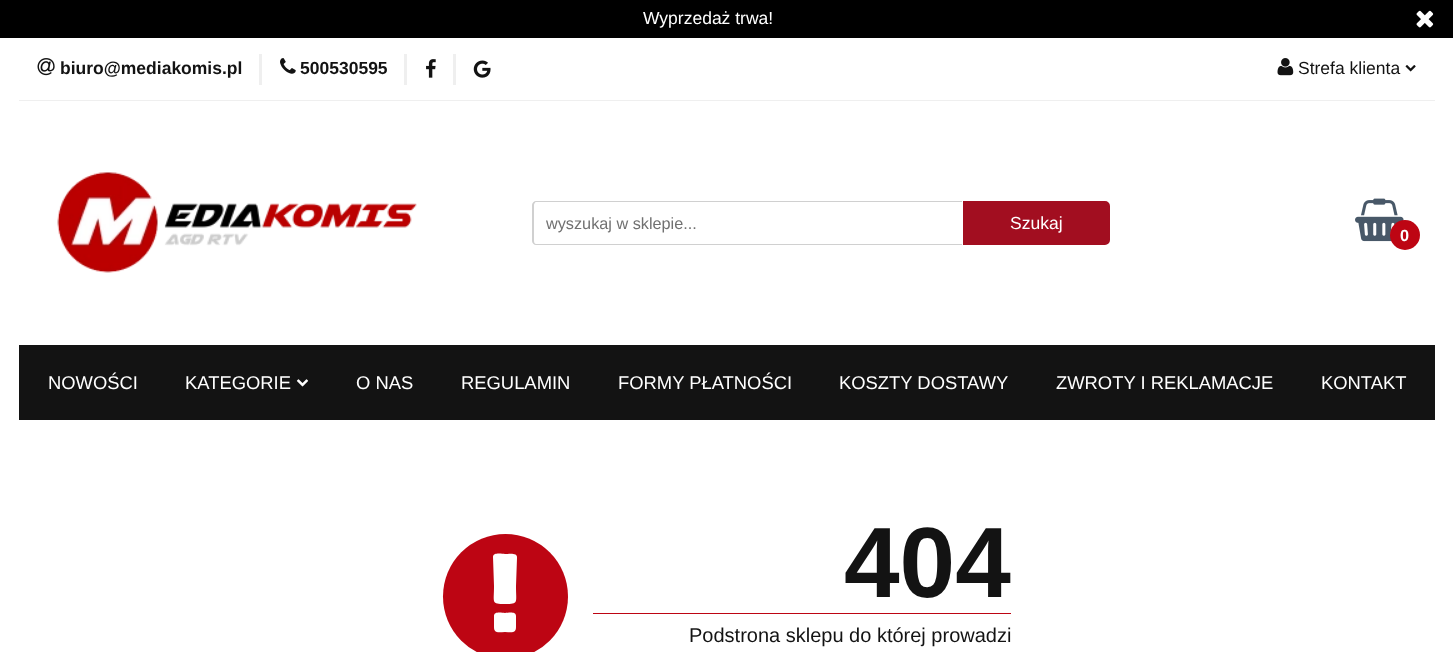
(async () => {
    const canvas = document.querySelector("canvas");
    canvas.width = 1453;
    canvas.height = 652;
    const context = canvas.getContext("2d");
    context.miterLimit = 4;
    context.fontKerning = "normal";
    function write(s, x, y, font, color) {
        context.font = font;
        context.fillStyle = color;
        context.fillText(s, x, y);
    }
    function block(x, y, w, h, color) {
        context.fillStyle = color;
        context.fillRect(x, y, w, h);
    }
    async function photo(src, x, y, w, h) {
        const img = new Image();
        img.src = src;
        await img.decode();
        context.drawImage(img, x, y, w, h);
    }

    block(0, 0, 1453, 652, "rgb(255, 255, 255)");
    block(0, 0, 1453, 38, "rgb(0, 0, 0)");
    write("Wyprzedaż trwa!", 643, 24, "17.5px Liberation Sans", "rgb(255, 255, 255)");
    await photo("media/1.png", 1416, 10, 18, 18);
    block(19, 100, 1416, 1, "rgb(239, 239, 239)");
    await photo("media/2.png", 37, 58, 18, 18);
    write("biuro@mediakomis.pl", 60, 74, "bold 17.5px Liberation Sans", "rgb(19, 19, 19)");
    block(259, 54, 3, 31, "rgb(239, 239, 239)");
    await photo("media/3.png", 280, 58, 16, 16);
    write("500530595", 300, 74, "bold 17.5px Liberation Sans", "rgb(19, 19, 19)");
    block(404, 54, 3, 31, "rgb(239, 239, 239)");
    await photo("media/4.png", 426, 59, 10, 19);
    block(453, 54, 3, 31, "rgb(239, 239, 239)");
    await photo("media/5.png", 473, 60, 18, 18);
    await photo("media/6.png", 1277, 58, 17, 18);
    write("Strefa klienta", 1298, 74, "17.5px Liberation Sans", "rgb(19, 19, 19)");
    await photo("media/7.png", 1405, 65, 11, 7);
    await photo("media/8.png", 57, 172, 360, 101);
    context.fillStyle = "rgb(208, 208, 208)";
    context.beginPath();
    context.moveTo(536, 201);
    context.lineTo(962, 201);
    context.lineTo(962, 245);
    context.lineTo(536, 245);
    context.bezierCurveTo(534, 245, 532, 243, 532, 241);
    context.lineTo(532, 205);
    context.bezierCurveTo(532, 203, 534, 201, 536, 201);
    context.closePath();
    context.moveTo(536, 202);
    context.lineTo(962, 202);
    context.lineTo(962, 244);
    context.lineTo(536, 244);
    context.bezierCurveTo(535, 244, 534, 243, 534, 241);
    context.lineTo(534, 205);
    context.bezierCurveTo(534, 204, 535, 202, 536, 202);
    context.closePath();
    context.fill("evenodd");
    write("wyszukaj w sklepie...", 546, 229, "16.25px Liberation Sans", "rgb(113, 113, 113)");
    context.fillStyle = "rgb(162, 14, 32)";
    context.beginPath();
    context.roundRect(965, 203, 143, 40, [0, 3, 3, 0]);
    context.fill();
    context.strokeStyle = "rgb(162, 14, 32)";
    context.lineWidth = 4;
    context.stroke();
    write("Szukaj", 1010, 229, "17.5px Liberation Sans", "rgb(255, 255, 255)");
    await photo("media/9.png", 1355, 198, 49, 44);
    context.fillStyle = "rgb(189, 5, 19)";
    context.beginPath();
    context.arc(1405, 235, 15, 0, Math.PI * 2);
    context.fill();
    write("0", 1400, 241, "bold 16.25px Liberation Sans", "rgb(255, 255, 255)");
    block(19, 345, 1416, 75, "rgb(19, 19, 19)");
    write("NOWOŚCI", 48, 389, "18.4px Liberation Sans", "rgb(255, 255, 255)");
    write("KATEGORIE", 185, 389, "18.4px Liberation Sans", "rgb(255, 255, 255)");
    await photo("media/10.png", 296, 379, 13, 8);
    write("O NAS", 356, 389, "18.4px Liberation Sans", "rgb(255, 255, 255)");
    write("REGULAMIN", 461, 389, "18.4px Liberation Sans", "rgb(255, 255, 255)");
    write("FORMY PŁATNOŚCI", 618, 389, "18.4px Liberation Sans", "rgb(255, 255, 255)");
    write("KOSZTY DOSTAWY", 839, 389, "18.4px Liberation Sans", "rgb(255, 255, 255)");
    write("ZWROTY I REKLAMACJE", 1056, 389, "18.4px Liberation Sans", "rgb(255, 255, 255)");
    write("KONTAKT", 1321, 389, "18.4px Liberation Sans", "rgb(255, 255, 255)");
    context.fillStyle = "rgb(189, 5, 19)";
    context.beginPath();
    context.arc(505.5, 596.5, 62.5, 0, Math.PI * 2);
    context.fill();
    context.fillStyle = "rgb(255, 255, 255)";
    context.beginPath();
    context.moveTo(516, 616);
    context.lineTo(516, 627);
    context.bezierCurveTo(516, 634, 511, 632, 505, 632);
    context.bezierCurveTo(499, 632, 494, 634, 494, 627);
    context.lineTo(494, 616);
    context.bezierCurveTo(494, 611, 502, 613, 505, 613);
    context.bezierCurveTo(508, 613, 516, 611, 516, 616);
    context.closePath();
    context.moveTo(517, 558);
    context.lineTo(516, 586);
    context.bezierCurveTo(516, 603, 519, 604, 505, 604);
    context.bezierCurveTo(491, 604, 494, 603, 494, 586);
    context.lineTo(493, 557);
    context.bezierCurveTo(493, 552, 502, 554, 505, 554);
    context.bezierCurveTo(508, 554, 518, 552, 517, 558);
    context.closePath();
    context.fill();
    block(593, 613, 418, 1, "rgb(189, 5, 19)");
    write("404", 844, 597, "bold 100px Liberation Sans", "rgb(19, 19, 19)");
    write("Podstrona sklepu do której prowadzi", 689, 642, "20px Liberation Sans", "rgb(19, 19, 19)");
})();
